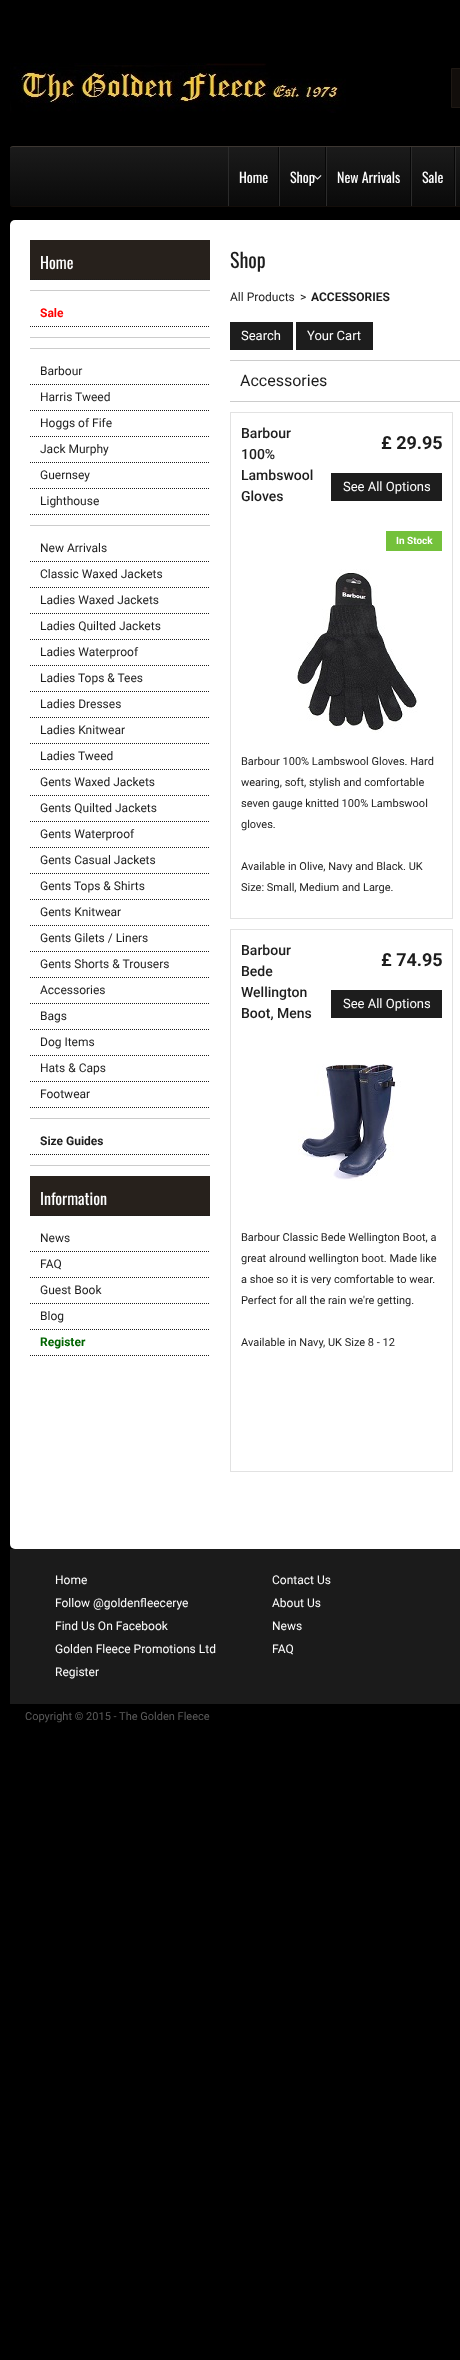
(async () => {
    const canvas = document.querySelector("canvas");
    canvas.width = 460;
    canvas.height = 2360;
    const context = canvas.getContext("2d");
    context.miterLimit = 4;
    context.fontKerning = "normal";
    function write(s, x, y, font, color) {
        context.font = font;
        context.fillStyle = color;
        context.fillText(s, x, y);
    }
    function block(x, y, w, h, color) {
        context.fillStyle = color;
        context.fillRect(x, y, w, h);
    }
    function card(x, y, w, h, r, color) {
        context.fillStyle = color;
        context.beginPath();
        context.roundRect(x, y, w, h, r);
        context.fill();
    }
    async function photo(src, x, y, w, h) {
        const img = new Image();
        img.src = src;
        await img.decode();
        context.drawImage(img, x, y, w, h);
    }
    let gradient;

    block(0, 0, 460, 2360, "rgb(0, 0, 0)");
    await photo("media/1.png", 10, 63, 336, 50);
    context.fillStyle = "rgb(18, 14, 11)";
    context.beginPath();
    context.rect(451.5, 68.5, 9, 39);
    context.fill();
    context.strokeStyle = "rgb(30, 24, 19)";
    context.stroke();
    context.save();
    context.beginPath();
    context.roundRect(10, 146, 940, 61, 3);
    context.clip();
    gradient = context.createLinearGradient(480, 147, 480, 206);
    gradient.addColorStop(0, "rgb(27, 27, 27)");
    gradient.addColorStop(1, "rgb(10, 10, 10)");
    context.fillStyle = gradient;
    context.fillRect(10, 147, 450, 59);
    context.restore();
    context.fillStyle = "rgb(61, 55, 50)";
    context.beginPath();
    context.moveTo(13, 146);
    context.bezierCurveTo(11, 146, 10, 147, 10, 149);
    context.bezierCurveTo(10, 148, 11, 147, 13, 147);
    context.lineTo(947, 147);
    context.bezierCurveTo(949, 147, 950, 148, 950, 149);
    context.bezierCurveTo(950, 147, 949, 146, 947, 146);
    context.closePath();
    context.fill();
    context.fillStyle = "rgb(19, 13, 9)";
    context.beginPath();
    context.moveTo(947, 207);
    context.bezierCurveTo(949, 207, 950, 206, 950, 204);
    context.bezierCurveTo(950, 205, 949, 206, 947, 206);
    context.lineTo(13, 206);
    context.bezierCurveTo(11, 206, 10, 205, 10, 204);
    context.bezierCurveTo(10, 206, 11, 207, 13, 207);
    context.closePath();
    context.fill();
    block(278, 147, 1, 59, "rgb(7, 7, 7)");
    block(228, 147, 1, 59, "rgb(43, 43, 43)");
    write("Home", 239, 183, "14px Oswald", "rgb(255, 255, 255)");
    block(325, 147, 1, 59, "rgb(7, 7, 7)");
    block(279, 147, 1, 59, "rgb(43, 43, 43)");
    write("Shop", 290, 183, "14px Oswald", "rgb(255, 255, 255)");
    await photo("media/2.png", 313, 175, 9, 5);
    block(410, 147, 1, 59, "rgb(7, 7, 7)");
    block(326, 147, 1, 59, "rgb(43, 43, 43)");
    write("New Arrivals", 337, 183, "14px Oswald", "rgb(255, 255, 255)");
    block(454, 147, 1, 59, "rgb(7, 7, 7)");
    block(411, 147, 1, 59, "rgb(43, 43, 43)");
    write("Sale", 422, 183, "14px Oswald", "rgb(255, 255, 255)");
    block(455, 147, 1, 59, "rgb(43, 43, 43)");
    card(10, 220, 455, 1329, 5, "rgb(255, 255, 255)");
    block(30, 240, 180, 40, "rgb(39, 33, 28)");
    context.beginPath();
    context.moveTo(30, 279.5);
    context.lineTo(210, 279.5);
    context.strokeStyle = "rgb(29, 29, 29)";
    context.setLineDash([1, 1]);
    context.stroke();
    write("Home", 40, 269, "16px Oswald", "rgb(255, 255, 255)");
    block(30, 290, 180, 1, "rgb(204, 204, 204)");
    context.beginPath();
    context.moveTo(30, 326.5);
    context.lineTo(210, 326.5);
    context.stroke();
    write("Sale", 40, 317, "bold 12px Roboto", "rgb(255, 0, 0)");
    block(30, 337, 180, 1, "rgb(204, 204, 204)");
    block(30, 348, 180, 1, "rgb(204, 204, 204)");
    context.beginPath();
    context.moveTo(30, 384.5);
    context.lineTo(210, 384.5);
    context.stroke();
    write("Barbour", 40, 375, "12px Roboto", "rgb(29, 29, 29)");
    context.beginPath();
    context.moveTo(30, 410.5);
    context.lineTo(210, 410.5);
    context.stroke();
    write("Harris Tweed", 40, 401, "12px Roboto", "rgb(29, 29, 29)");
    context.beginPath();
    context.moveTo(30, 436.5);
    context.lineTo(210, 436.5);
    context.stroke();
    write("Hoggs of Fife", 40, 427, "12px Roboto", "rgb(29, 29, 29)");
    context.beginPath();
    context.moveTo(30, 462.5);
    context.lineTo(210, 462.5);
    context.stroke();
    write("Jack Murphy", 40, 453, "12px Roboto", "rgb(29, 29, 29)");
    context.beginPath();
    context.moveTo(30, 488.5);
    context.lineTo(210, 488.5);
    context.stroke();
    write("Guernsey", 40, 479, "12px Roboto", "rgb(29, 29, 29)");
    context.beginPath();
    context.moveTo(30, 514.5);
    context.lineTo(210, 514.5);
    context.stroke();
    write("Lighthouse", 40, 505, "12px Roboto", "rgb(29, 29, 29)");
    block(30, 525, 180, 1, "rgb(204, 204, 204)");
    context.beginPath();
    context.moveTo(30, 561.5);
    context.lineTo(210, 561.5);
    context.stroke();
    write("New Arrivals", 40, 552, "12px Roboto", "rgb(29, 29, 29)");
    context.beginPath();
    context.moveTo(30, 587.5);
    context.lineTo(210, 587.5);
    context.stroke();
    write("Classic Waxed Jackets", 40, 578, "12px Roboto", "rgb(29, 29, 29)");
    context.beginPath();
    context.moveTo(30, 613.5);
    context.lineTo(210, 613.5);
    context.stroke();
    write("Ladies Waxed Jackets", 40, 604, "12px Roboto", "rgb(29, 29, 29)");
    context.beginPath();
    context.moveTo(30, 639.5);
    context.lineTo(210, 639.5);
    context.stroke();
    write("Ladies Quilted Jackets", 40, 630, "12px Roboto", "rgb(29, 29, 29)");
    context.beginPath();
    context.moveTo(30, 665.5);
    context.lineTo(210, 665.5);
    context.stroke();
    write("Ladies Waterproof", 40, 656, "12px Roboto", "rgb(29, 29, 29)");
    context.beginPath();
    context.moveTo(30, 691.5);
    context.lineTo(210, 691.5);
    context.stroke();
    write("Ladies Tops & Tees", 40, 682, "12px Roboto", "rgb(29, 29, 29)");
    context.beginPath();
    context.moveTo(30, 717.5);
    context.lineTo(210, 717.5);
    context.stroke();
    write("Ladies Dresses", 40, 708, "12px Roboto", "rgb(29, 29, 29)");
    context.beginPath();
    context.moveTo(30, 743.5);
    context.lineTo(210, 743.5);
    context.stroke();
    write("Ladies Knitwear", 40, 734, "12px Roboto", "rgb(29, 29, 29)");
    context.beginPath();
    context.moveTo(30, 769.5);
    context.lineTo(210, 769.5);
    context.stroke();
    write("Ladies Tweed", 40, 760, "12px Roboto", "rgb(29, 29, 29)");
    context.beginPath();
    context.moveTo(30, 795.5);
    context.lineTo(210, 795.5);
    context.stroke();
    write("Gents Waxed Jackets", 40, 786, "12px Roboto", "rgb(29, 29, 29)");
    context.beginPath();
    context.moveTo(30, 821.5);
    context.lineTo(210, 821.5);
    context.stroke();
    write("Gents Quilted Jackets", 40, 812, "12px Roboto", "rgb(29, 29, 29)");
    context.beginPath();
    context.moveTo(30, 847.5);
    context.lineTo(210, 847.5);
    context.stroke();
    write("Gents Waterproof", 40, 838, "12px Roboto", "rgb(29, 29, 29)");
    context.beginPath();
    context.moveTo(30, 873.5);
    context.lineTo(210, 873.5);
    context.stroke();
    write("Gents Casual Jackets", 40, 864, "12px Roboto", "rgb(29, 29, 29)");
    context.beginPath();
    context.moveTo(30, 899.5);
    context.lineTo(210, 899.5);
    context.stroke();
    write("Gents Tops & Shirts", 40, 890, "12px Roboto", "rgb(29, 29, 29)");
    context.beginPath();
    context.moveTo(30, 925.5);
    context.lineTo(210, 925.5);
    context.stroke();
    write("Gents Knitwear", 40, 916, "12px Roboto", "rgb(29, 29, 29)");
    context.beginPath();
    context.moveTo(30, 951.5);
    context.lineTo(210, 951.5);
    context.stroke();
    write("Gents Gilets / Liners", 40, 942, "12px Roboto", "rgb(29, 29, 29)");
    context.beginPath();
    context.moveTo(30, 977.5);
    context.lineTo(210, 977.5);
    context.stroke();
    write("Gents Shorts & Trousers", 40, 968, "12px Roboto", "rgb(29, 29, 29)");
    context.beginPath();
    context.moveTo(30, 1003.5);
    context.lineTo(210, 1003.5);
    context.stroke();
    write("Accessories", 40, 994, "12px Roboto", "rgb(29, 29, 29)");
    context.beginPath();
    context.moveTo(30, 1029.5);
    context.lineTo(210, 1029.5);
    context.stroke();
    write("Bags", 40, 1020, "12px Roboto", "rgb(29, 29, 29)");
    context.beginPath();
    context.moveTo(30, 1055.5);
    context.lineTo(210, 1055.5);
    context.stroke();
    write("Dog Items", 40, 1046, "12px Roboto", "rgb(29, 29, 29)");
    context.beginPath();
    context.moveTo(30, 1081.5);
    context.lineTo(210, 1081.5);
    context.stroke();
    write("Hats & Caps", 40, 1072, "12px Roboto", "rgb(29, 29, 29)");
    context.beginPath();
    context.moveTo(30, 1107.5);
    context.lineTo(210, 1107.5);
    context.stroke();
    write("Footwear", 40, 1098, "12px Roboto", "rgb(29, 29, 29)");
    block(30, 1118, 180, 1, "rgb(204, 204, 204)");
    context.beginPath();
    context.moveTo(30, 1154.5);
    context.lineTo(210, 1154.5);
    context.stroke();
    write("Size Guides", 40, 1145, "bold 12px Roboto", "rgb(29, 29, 29)");
    block(30, 1165, 180, 1, "rgb(204, 204, 204)");
    block(30, 1176, 180, 40, "rgb(39, 33, 28)");
    context.beginPath();
    context.moveTo(30, 1215.5);
    context.lineTo(210, 1215.5);
    context.stroke();
    write("Information", 40, 1205, "16px Oswald", "rgb(255, 255, 255)");
    context.beginPath();
    context.moveTo(30, 1251.5);
    context.lineTo(210, 1251.5);
    context.stroke();
    write("News", 40, 1242, "12px Roboto", "rgb(29, 29, 29)");
    context.beginPath();
    context.moveTo(30, 1277.5);
    context.lineTo(210, 1277.5);
    context.stroke();
    write("FAQ", 40, 1268, "12px Roboto", "rgb(29, 29, 29)");
    context.beginPath();
    context.moveTo(30, 1303.5);
    context.lineTo(210, 1303.5);
    context.stroke();
    write("Guest Book", 40, 1294, "12px Roboto", "rgb(29, 29, 29)");
    context.beginPath();
    context.moveTo(30, 1329.5);
    context.lineTo(210, 1329.5);
    context.stroke();
    write("Blog", 40, 1320, "12px Roboto", "rgb(29, 29, 29)");
    context.beginPath();
    context.moveTo(30, 1355.5);
    context.lineTo(210, 1355.5);
    context.stroke();
    write("Register", 40, 1346, "bold 12px Roboto", "rgb(0, 100, 0)");
    write("Shop", 230, 268, "20px Oswald", "rgb(29, 29, 29)");
    write("All Products", 230, 301, "12px Roboto", "rgb(29, 29, 29)");
    write(">", 300, 301, "12px Roboto", "rgb(29, 29, 29)");
    write("ACCESSORIES", 311, 301, "bold 12px Roboto", "rgb(29, 29, 29)");
    block(230, 322, 63, 28, "rgb(29, 29, 29)");
    write("Search", 241, 340, "13px Roboto", "rgb(255, 255, 255)");
    block(296, 322, 77, 28, "rgb(29, 29, 29)");
    write("Your Cart", 307, 340, "13px Roboto", "rgb(255, 255, 255)");
    block(230, 360, 230, 1, "rgb(204, 204, 204)");
    block(230, 401, 230, 1, "rgb(204, 204, 204)");
    write("Accessories", 240, 386, "16px Roboto", "rgb(29, 29, 29)");
    context.strokeStyle = "rgb(226, 226, 226)";
    context.setLineDash([]);
    context.strokeRect(230.5, 412.5, 222, 506);
    write("Barbour", 241, 438, "500 14px Roboto", "rgb(29, 29, 29)");
    write("100%", 241, 459, "500 14px Roboto", "rgb(29, 29, 29)");
    write("Lambswool", 241, 480, "500 14px Roboto", "rgb(29, 29, 29)");
    write("Gloves", 241, 501, "500 14px Roboto", "rgb(29, 29, 29)");
    write("£ 29.95", 381, 449, "bold 18px Roboto", "rgb(29, 29, 29)");
    block(331, 473, 111, 28, "rgb(29, 29, 29)");
    write("See All Options", 343, 491, "13px Roboto", "rgb(255, 255, 255)");
    block(386, 531, 56, 20, "rgb(116, 193, 59)");
    write("In Stock", 396, 544, "bold 10px Roboto", "rgb(255, 255, 255)");
    await photo("media/3.png", 295, 569, 123, 164);
    write("Barbour 100% Lambswool Gloves. Hard", 241, 765, "11px Roboto", "rgb(29, 29, 29)");
    write("wearing, soft, stylish and comfortable", 241, 786, "11px Roboto", "rgb(29, 29, 29)");
    write("seven gauge knitted 100% Lambswool", 241, 807, "11px Roboto", "rgb(29, 29, 29)");
    write("gloves.", 241, 828, "11px Roboto", "rgb(29, 29, 29)");
    write("Available in Olive, Navy and Black. UK", 241, 870, "11px Roboto", "rgb(29, 29, 29)");
    write("Size: Small, Medium and Large.", 241, 891, "11px Roboto", "rgb(29, 29, 29)");
    context.strokeRect(230.5, 929.5, 222, 542);
    write("Barbour", 241, 955, "500 14px Roboto", "rgb(29, 29, 29)");
    write("Bede", 241, 976, "500 14px Roboto", "rgb(29, 29, 29)");
    write("Wellington", 241, 997, "500 14px Roboto", "rgb(29, 29, 29)");
    write("Boot, Mens", 241, 1018, "500 14px Roboto", "rgb(29, 29, 29)");
    write("£ 74.95", 381, 966, "bold 18px Roboto", "rgb(29, 29, 29)");
    block(331, 990, 111, 28, "rgb(29, 29, 29)");
    write("See All Options", 343, 1008, "13px Roboto", "rgb(255, 255, 255)");
    await photo("media/4.png", 298, 1064, 103, 117);
    write("Barbour Classic Bede Wellington Boot, a", 241, 1241, "11px Roboto", "rgb(29, 29, 29)");
    write("great alround wellington boot. Made like", 241, 1262, "11px Roboto", "rgb(29, 29, 29)");
    write("a shoe so it is very comfortable to wear.", 241, 1283, "11px Roboto", "rgb(29, 29, 29)");
    write("Perfect for all the rain we're getting.", 241, 1304, "11px Roboto", "rgb(29, 29, 29)");
    write("Available in Navy, UK Size 8 - 12", 241, 1346, "11px Roboto", "rgb(29, 29, 29)");
    block(10, 1549, 450, 155, "rgb(27, 27, 27)");
    write("Home", 55, 1584, "12px Roboto", "rgb(255, 255, 255)");
    write("Contact Us", 272, 1584, "12px Roboto", "rgb(255, 255, 255)");
    write("Follow @goldenfleecerye", 55, 1607, "12px Roboto", "rgb(255, 255, 255)");
    write("About Us", 272, 1607, "12px Roboto", "rgb(255, 255, 255)");
    write("Find Us On Facebook", 55, 1630, "12px Roboto", "rgb(255, 255, 255)");
    write("News", 272, 1630, "12px Roboto", "rgb(255, 255, 255)");
    write("Golden Fleece Promotions Ltd", 55, 1653, "12px Roboto", "rgb(255, 255, 255)");
    write("FAQ", 272, 1653, "12px Roboto", "rgb(255, 255, 255)");
    write("Register", 55, 1676, "12px Roboto", "rgb(255, 255, 255)");
    write("Copyright © 2015 - The Golden Fleece", 25, 1720, "11px Roboto", "rgb(91, 91, 91)");
})();
